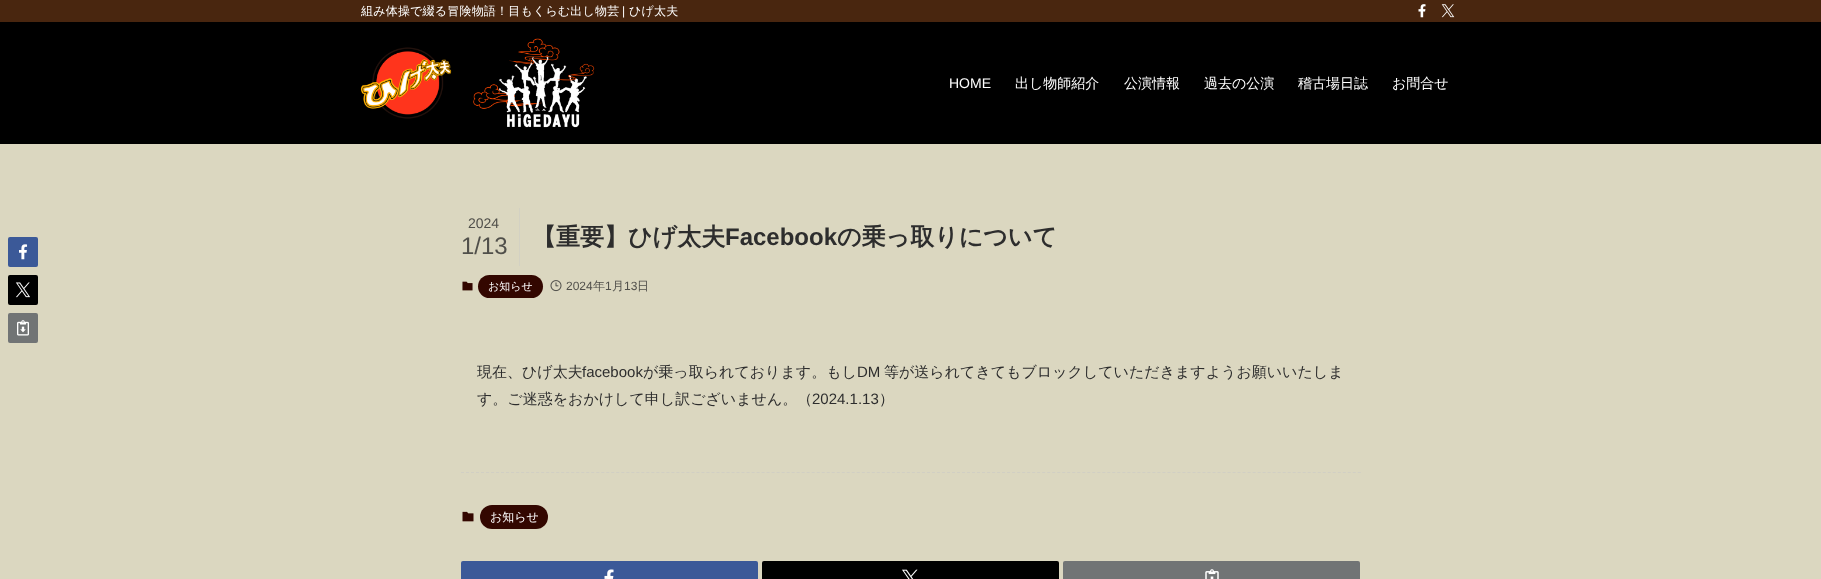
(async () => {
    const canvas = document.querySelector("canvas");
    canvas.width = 1821;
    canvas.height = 579;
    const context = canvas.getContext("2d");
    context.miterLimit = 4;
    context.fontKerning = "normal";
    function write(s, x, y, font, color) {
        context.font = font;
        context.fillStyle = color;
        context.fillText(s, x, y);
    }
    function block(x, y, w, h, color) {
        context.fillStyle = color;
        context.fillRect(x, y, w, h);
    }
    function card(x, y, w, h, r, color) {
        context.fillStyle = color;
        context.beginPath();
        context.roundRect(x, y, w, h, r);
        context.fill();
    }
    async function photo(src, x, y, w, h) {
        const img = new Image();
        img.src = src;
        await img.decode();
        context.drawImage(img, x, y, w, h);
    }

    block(0, 0, 1821, 579, "rgb(219, 215, 192)");
    block(0, 22, 1821, 122, "rgb(0, 0, 0)");
    block(0, 0, 1821, 22, "rgb(73, 38, 15)");
    context.save();
    context.beginPath();
    context.rect(361, 0, 550, 22);
    context.clip();
    context.letterSpacing = "0.2px";
    write("組み体操で綴る冒険物語！目もくらむ出し物芸", 361, 15, "500 12px WenQuanYi Zen Hei", "rgb(255, 255, 255)");
    context.restore();
    context.letterSpacing = "0.2px";
    write("|", 622, 15, "12px Liberation Sans", "rgb(255, 255, 255)");
    write("ひげ太夫", 629, 15, "500 12px WenQuanYi Zen Hei", "rgb(255, 255, 255)");
    await photo("media/1.png", 1418, 4, 8, 14);
    await photo("media/2.png", 1441, 4, 14, 14);
    await photo("media/3.png", 361, 38, 234, 90);
    context.letterSpacing = "0px";
    write("HOME", 949, 88, "14px Liberation Sans", "rgb(255, 255, 255)");
    write("出し物師紹介", 1015, 88, "500 14px WenQuanYi Zen Hei", "rgb(255, 255, 255)");
    write("公演情報", 1124, 88, "500 14px WenQuanYi Zen Hei", "rgb(255, 255, 255)");
    write("過去の公演", 1204, 88, "500 14px WenQuanYi Zen Hei", "rgb(255, 255, 255)");
    write("稽古場日誌", 1298, 88, "500 14px WenQuanYi Zen Hei", "rgb(255, 255, 255)");
    write("お問合せ", 1392, 88, "500 14px WenQuanYi Zen Hei", "rgb(255, 255, 255)");
    card(8, 237, 30, 30, 2, "rgb(59, 89, 152)");
    await photo("media/4.png", 19, 244, 9, 16);
    card(8, 275, 30, 30, 2, "rgb(0, 0, 0)");
    await photo("media/5.png", 15, 282, 15, 16);
    card(8, 313, 30, 30, 2, "rgb(113, 116, 117)");
    await photo("media/6.png", 17, 320, 12, 16);
    block(519, 208, 1, 58, "rgb(211, 209, 195)");
    write("2024", 468, 228, "14px Liberation Sans", "rgb(80, 79, 74)");
    write("1/13", 461, 254, "24px Liberation Sans", "rgb(80, 79, 74)");
    write("【重要】ひげ太夫", 532, 245, "bold 24px WenQuanYi Zen Hei", "rgb(45, 45, 45)");
    write("Facebook", 725, 245, "bold 24px Liberation Sans", "rgb(45, 45, 45)");
    write("の乗っ取りについて", 837, 245, "bold 24px WenQuanYi Zen Hei", "rgb(45, 45, 45)");
    await photo("media/7.png", 462, 281, 11, 10);
    card(478, 275, 65, 23, 11.5, "rgb(51, 7, 0)");
    write("お知らせ", 488, 290, "500 11px WenQuanYi Zen Hei", "rgb(255, 255, 255)");
    await photo("media/8.png", 550, 280, 12, 12);
    write("2024", 566, 290, "12px Liberation Sans", "rgb(80, 79, 74)");
    write("年", 593, 290, "500 12px WenQuanYi Zen Hei", "rgb(80, 79, 74)");
    write("1", 605, 290, "12px Liberation Sans", "rgb(80, 79, 74)");
    write("月", 612, 290, "500 12px WenQuanYi Zen Hei", "rgb(80, 79, 74)");
    write("13", 624, 290, "12px Liberation Sans", "rgb(80, 79, 74)");
    write("日", 637, 290, "500 12px WenQuanYi Zen Hei", "rgb(80, 79, 74)");
    write("現在、ひげ太夫", 477, 377, "500 15px WenQuanYi Zen Hei", "rgb(45, 45, 45)");
    write("facebook", 582, 377, "15px Liberation Sans", "rgb(45, 45, 45)");
    write("が乗っ取られております。もし", 643, 377, "500 15px WenQuanYi Zen Hei", "rgb(45, 45, 45)");
    write("DM", 857, 377, "15px Liberation Sans", "rgb(45, 45, 45)");
    write("等が送られてきてもブロックしていただきますようお願いいたしま", 884, 377, "500 15px WenQuanYi Zen Hei", "rgb(45, 45, 45)");
    write("す。ご迷惑をおかけして申し訳ございません。（", 477, 404, "500 15px WenQuanYi Zen Hei", "rgb(45, 45, 45)");
    write("2024.1.13", 812, 404, "15px Liberation Sans", "rgb(45, 45, 45)");
    write("）", 879, 404, "500 15px WenQuanYi Zen Hei", "rgb(45, 45, 45)");
    context.beginPath();
    context.moveTo(461, 472.5);
    context.lineTo(1361, 472.5);
    context.strokeStyle = "rgb(209, 207, 196)";
    context.setLineDash([3, 2.01]);
    context.stroke();
    await photo("media/9.png", 462, 511, 12, 11);
    card(480, 505, 68, 24, 12, "rgb(51, 7, 0)");
    write("お知らせ", 490, 521, "500 12px WenQuanYi Zen Hei", "rgb(255, 255, 255)");
    card(461, 561, 297, 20, 2, "rgb(59, 89, 152)");
    await photo("media/10.png", 604, 569, 10, 10);
    card(762, 561, 297, 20, 2, "rgb(0, 0, 0)");
    await photo("media/11.png", 902, 569, 16, 10);
    card(1063, 561, 297, 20, 2, "rgb(113, 116, 117)");
    await photo("media/12.png", 1205, 569, 14, 10);
})();
